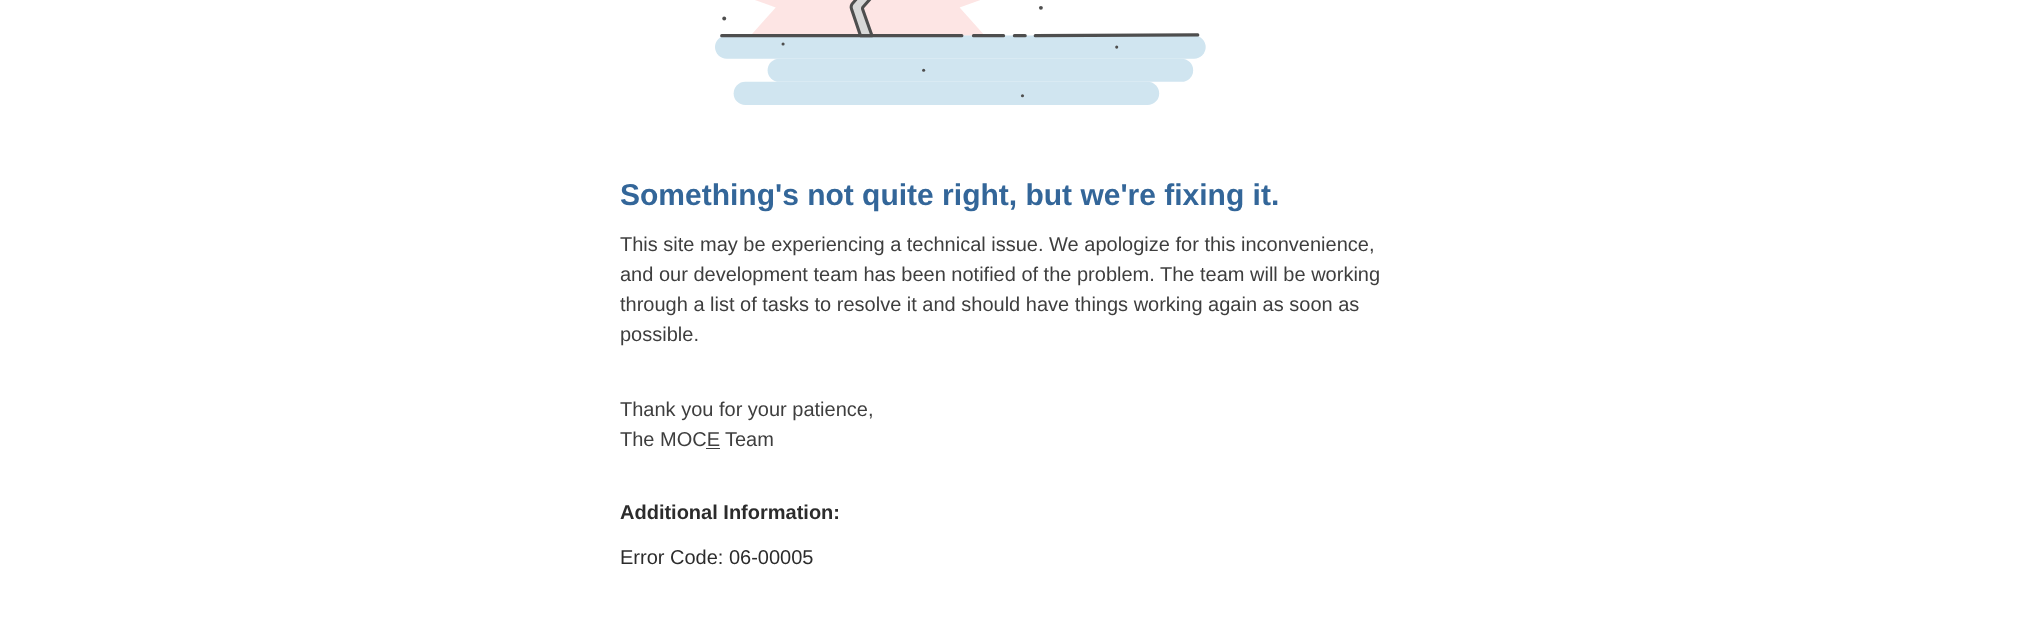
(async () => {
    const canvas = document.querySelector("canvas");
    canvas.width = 2019;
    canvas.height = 617;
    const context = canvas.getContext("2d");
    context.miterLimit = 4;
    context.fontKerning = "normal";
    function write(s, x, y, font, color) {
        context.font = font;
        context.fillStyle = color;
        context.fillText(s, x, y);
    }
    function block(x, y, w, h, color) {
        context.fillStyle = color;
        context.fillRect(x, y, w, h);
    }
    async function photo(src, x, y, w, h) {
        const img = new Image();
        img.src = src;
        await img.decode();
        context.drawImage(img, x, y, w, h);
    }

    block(0, 0, 2019, 617, "rgb(255, 255, 255)");
    await photo("media/1.png", 715, 0, 491, 105);
    write("Something's not quite right, but we're fixing it.", 620, 205, "bold 30px Liberation Sans", "rgb(51, 102, 153)");
    write("This site may be experiencing a technical issue. We apologize for this inconvenience,", 620, 251, "20px Liberation Sans", "rgb(62, 62, 62)");
    write("and our development team has been notified of the problem.", 620, 281, "20px Liberation Sans", "rgb(62, 62, 62)");
    write("The team will be working", 1160, 281, "20px Liberation Sans", "rgb(62, 62, 62)");
    write("through a list of tasks to resolve it and should have things working again as soon as", 620, 311, "20px Liberation Sans", "rgb(62, 62, 62)");
    write("possible.", 620, 341, "20px Liberation Sans", "rgb(62, 62, 62)");
    write("Thank you for your patience,", 620, 416, "20px Liberation Sans", "rgb(62, 62, 62)");
    write("The MOCE", 620, 446, "20px Liberation Sans", "rgb(62, 62, 62)");
    write("Team", 725, 446, "20px Liberation Sans", "rgb(62, 62, 62)");
    block(706, 448, 14, 1, "rgb(62, 62, 62)");
    write("Additional Information:", 620, 519, "bold 20px Liberation Sans", "rgb(44, 44, 44)");
    write("Error Code: 06-00005", 620, 564, "20px Liberation Sans", "rgb(44, 44, 44)");
})();
